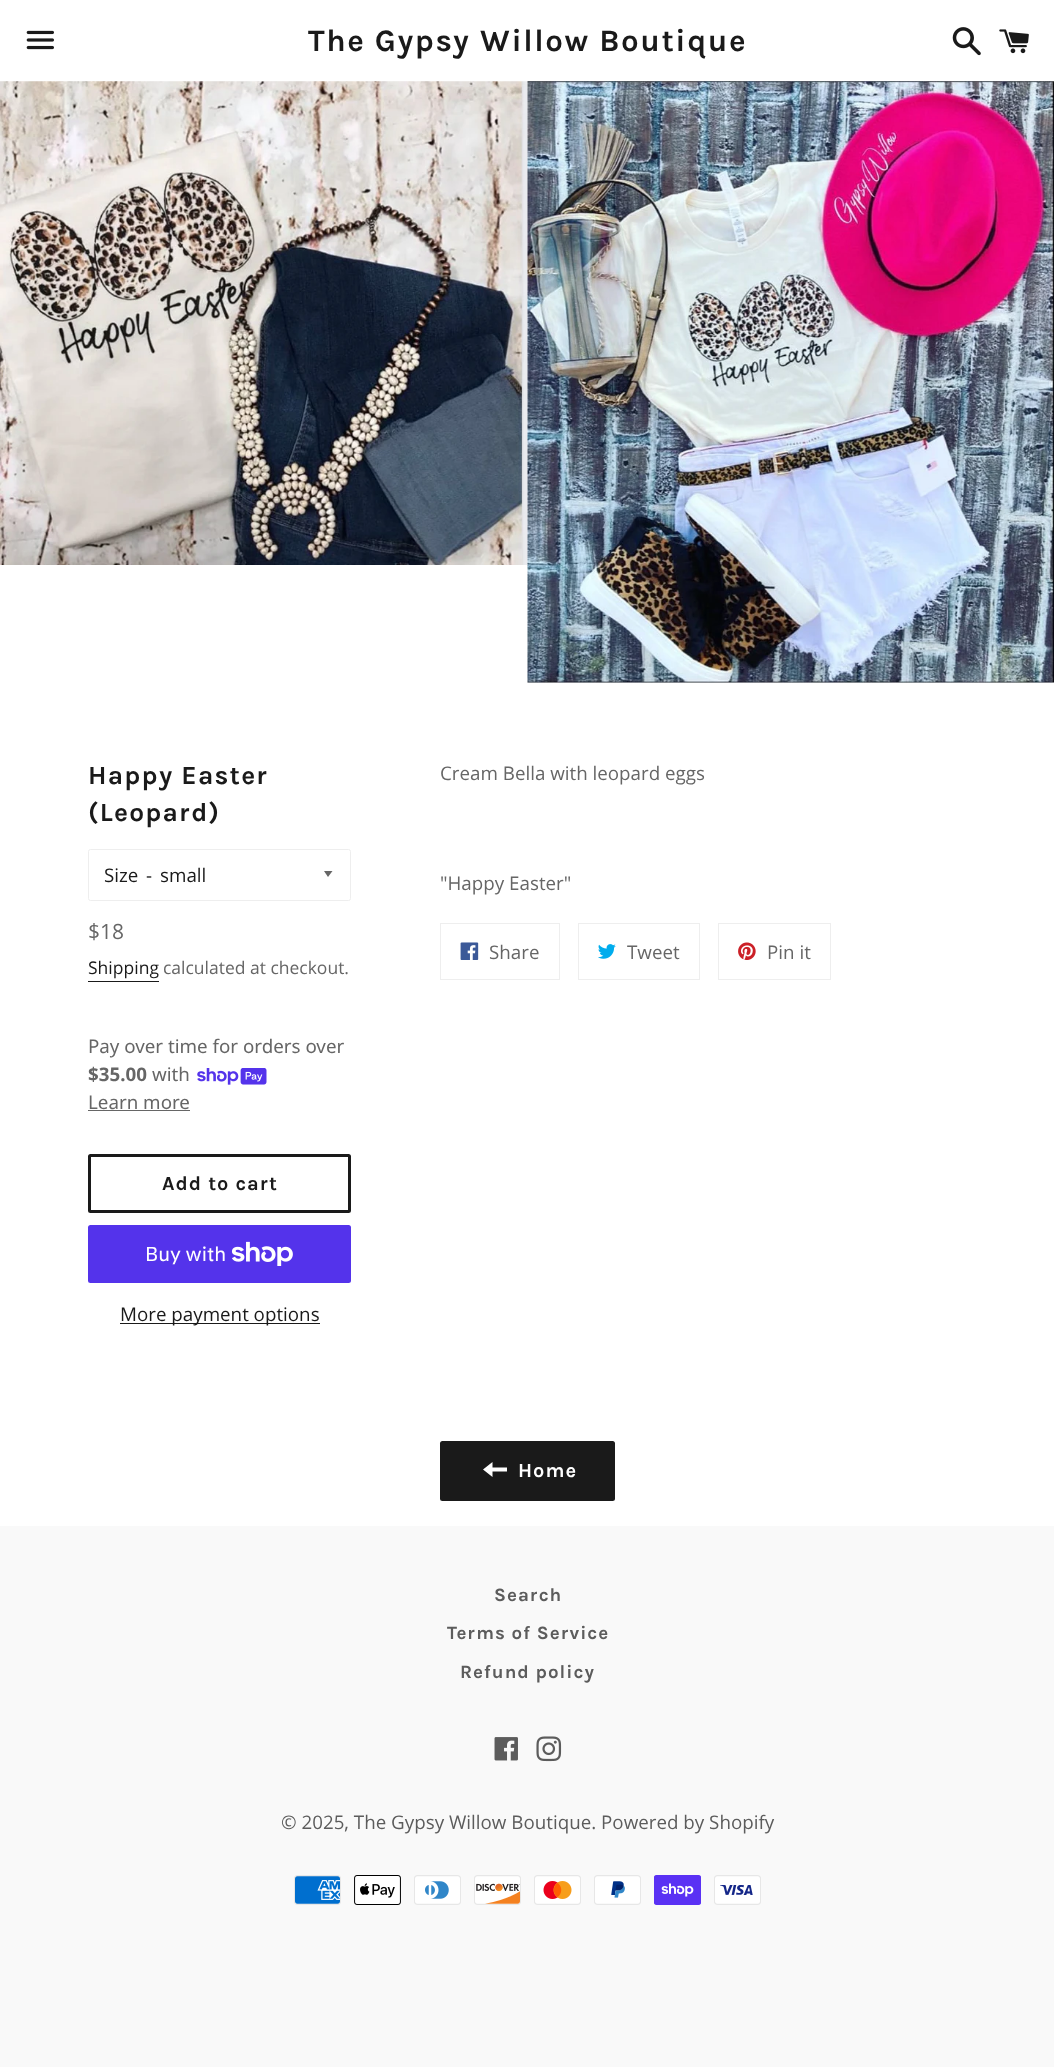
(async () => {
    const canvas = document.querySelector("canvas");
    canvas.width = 1054;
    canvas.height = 2067;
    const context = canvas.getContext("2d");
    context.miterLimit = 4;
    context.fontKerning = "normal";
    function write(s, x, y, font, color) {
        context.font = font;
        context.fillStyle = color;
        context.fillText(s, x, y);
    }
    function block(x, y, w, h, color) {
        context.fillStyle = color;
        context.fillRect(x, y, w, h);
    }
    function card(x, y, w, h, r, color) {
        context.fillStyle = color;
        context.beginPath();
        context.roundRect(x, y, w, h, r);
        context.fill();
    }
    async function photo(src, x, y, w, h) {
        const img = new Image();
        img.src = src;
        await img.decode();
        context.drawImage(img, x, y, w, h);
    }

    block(0, 0, 1054, 2067, "rgb(249, 249, 249)");
    block(0, 0, 1054, 1526, "rgb(255, 255, 255)");
    await photo("media/1.png", 26, 30, 28, 20);
    context.letterSpacing = "1.55px";
    write("The Gypsy Willow Boutique", 308, 51, "bold 31.25px Karla", "rgb(26, 26, 26)");
    await photo("media/2.png", 952, 27, 29, 29);
    await photo("media/3.png", 999, 29, 30, 25);
    await photo("media/4.png", 0, 81, 528, 484);
    await photo("media/5.png", 527, 81, 527, 602);
    context.letterSpacing = "1.25px";
    write("Happy Easter", 88, 784, "bold 26.25px Karla", "rgb(26, 26, 26)");
    write("(Leopard)", 88, 821, "bold 26.25px Karla", "rgb(26, 26, 26)");
    context.beginPath();
    context.roundRect(88.5, 849.5, 262, 51, 2);
    context.strokeStyle = "rgb(238, 238, 238)";
    context.stroke();
    context.letterSpacing = "0px";
    write("Size", 104, 882, "18.75px Open Sans", "rgb(26, 26, 26)");
    write("-", 146, 882, "18.75px Open Sans", "rgb(26, 26, 26)");
    context.fillStyle = "rgb(102, 102, 102)";
    context.beginPath();
    context.moveTo(324, 871);
    context.lineTo(328, 877);
    context.lineTo(332.5, 871);
    context.closePath();
    context.fill();
    write("small", 160, 882, "18.75px Open Sans", "rgb(26, 26, 26)");
    write("$18", 88, 939, "21px Open Sans", "rgb(102, 102, 102)");
    write("Shipping", 88, 974, "17.5px Open Sans", "rgb(26, 26, 26)");
    block(88, 981, 71, 1, "rgb(26, 26, 26)");
    write("calculated at checkout.", 163, 974, "17.5px Open Sans", "rgb(102, 102, 102)");
    write("Pay over time for orders over", 88, 1053, "18.75px Noto Sans", "rgb(102, 102, 102)");
    write("$35.00", 88, 1081, "bold 18.75px Noto Sans", "rgb(102, 102, 102)");
    write("with", 152, 1081, "18.75px Noto Sans", "rgb(102, 102, 102)");
    await photo("media/6.png", 197, 1068, 70, 17);
    write("Learn more", 88, 1109, "18.75px Noto Sans", "rgb(102, 102, 102)");
    block(88, 1110, 102, 1, "rgb(102, 102, 102)");
    context.beginPath();
    context.roundRect(89.5, 1155.5, 260, 56, 1);
    context.strokeStyle = "rgb(26, 26, 26)";
    context.lineWidth = 3;
    context.stroke();
    context.letterSpacing = "1px";
    write("Add to cart", 162, 1190, "bold 20px Karla", "rgb(26, 26, 26)");
    card(88, 1225, 263, 58, 2.5, "rgb(84, 51, 235)");
    context.letterSpacing = "0px";
    write("Buy with", 145, 1261, "20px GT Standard", "rgb(255, 255, 255)");
    await photo("media/7.png", 231, 1241, 62, 25);
    block(120, 1323, 200, 1, "rgb(26, 26, 26)");
    write("More payment options", 120, 1321, "18.75px Open Sans", "rgb(26, 26, 26)");
    write("Cream Bella with leopard eggs", 440, 780, "18.75px Open Sans", "rgb(102, 102, 102)");
    write("\"Happy Easter\"", 440, 890, "18.75px Open Sans", "rgb(102, 102, 102)");
    context.strokeStyle = "rgb(238, 238, 238)";
    context.lineWidth = 1;
    context.strokeRect(440.5, 923.5, 119, 56);
    await photo("media/8.png", 460, 942, 19, 18);
    write("Share", 489, 959, "18.75px Open Sans", "rgb(102, 102, 102)");
    context.strokeRect(578.5, 923.5, 121, 56);
    await photo("media/9.png", 598, 944, 18, 15);
    write("Tweet", 627, 959, "18.75px Open Sans", "rgb(102, 102, 102)");
    context.strokeRect(718.5, 923.5, 112, 56);
    await photo("media/10.png", 738, 942, 18, 18);
    write("Pin it", 767, 959, "18.75px Open Sans", "rgb(102, 102, 102)");
    card(440, 1441, 175, 60, 2.5, "rgb(26, 26, 26)");
    context.fillStyle = "rgb(255, 255, 255)";
    context.beginPath();
    context.moveTo(492.5, 1467.5);
    context.lineTo(492.5, 1462);
    context.lineTo(483, 1469.5);
    context.lineTo(492.5, 1477);
    context.lineTo(492.5, 1471.5);
    context.lineTo(507, 1471.5);
    context.lineTo(507, 1467.5);
    context.closePath();
    context.fill();
    context.letterSpacing = "1px";
    write("Home", 518, 1477, "bold 20px Karla", "rgb(255, 255, 255)");
    write("Search", 494, 1601, "bold 18.75px Karla", "rgb(92, 92, 92)");
    write("Terms of Service", 447, 1639, "bold 18.75px Karla", "rgb(92, 92, 92)");
    write("Refund policy", 460, 1678, "bold 18.75px Karla", "rgb(92, 92, 92)");
    await photo("media/11.png", 494, 1737, 24, 24);
    await photo("media/12.png", 536, 1736, 26, 26);
    context.letterSpacing = "0px";
    write("© 2025, The Gypsy Willow Boutique. Powered by Shopify", 281, 1829, "18.75px Open Sans", "rgb(92, 92, 92)");
    await photo("media/13.png", 294, 1875, 47, 30);
    await photo("media/14.png", 354, 1875, 47, 30);
    await photo("media/15.png", 414, 1875, 47, 30);
    await photo("media/16.png", 474, 1875, 47, 30);
    await photo("media/17.png", 534, 1875, 47, 30);
    await photo("media/18.png", 594, 1875, 47, 30);
    await photo("media/19.png", 654, 1875, 47, 30);
    await photo("media/20.png", 714, 1875, 47, 30);
})();
